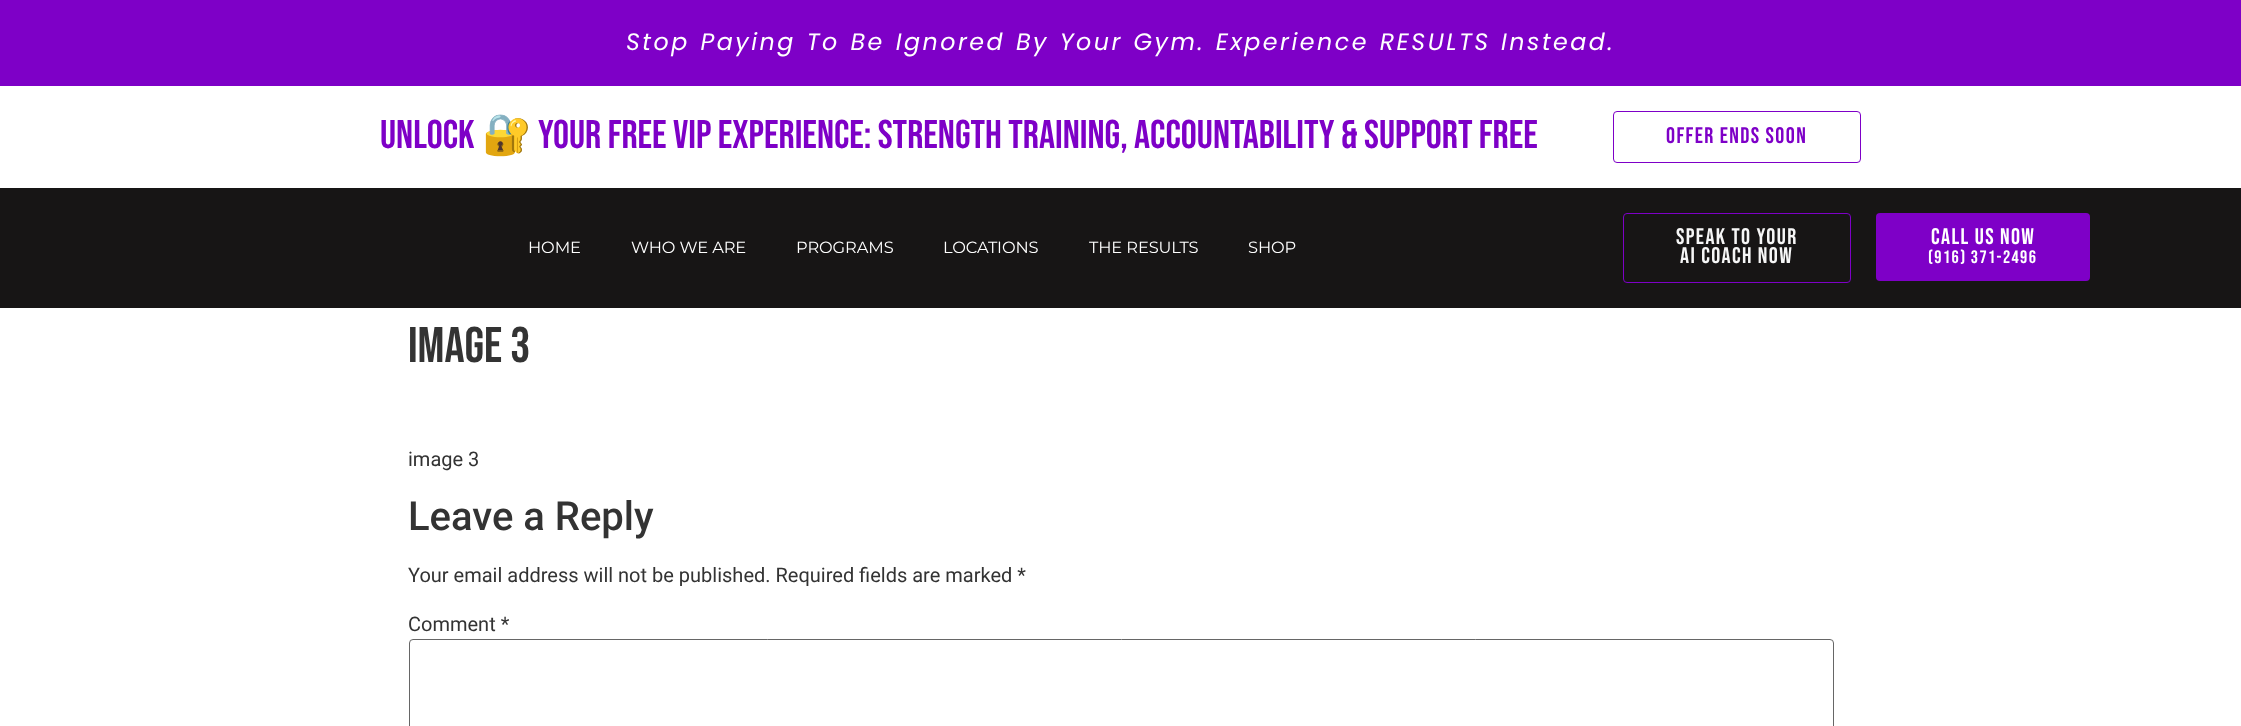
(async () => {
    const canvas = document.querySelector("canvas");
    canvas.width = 2241;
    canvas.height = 726;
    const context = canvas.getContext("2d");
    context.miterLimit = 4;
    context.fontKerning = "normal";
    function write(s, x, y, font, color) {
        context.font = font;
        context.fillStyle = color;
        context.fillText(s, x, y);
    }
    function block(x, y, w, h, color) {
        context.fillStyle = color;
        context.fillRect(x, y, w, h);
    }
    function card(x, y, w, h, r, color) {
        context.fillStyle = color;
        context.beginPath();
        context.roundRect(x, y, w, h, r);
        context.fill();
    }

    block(0, 0, 2241, 726, "rgb(255, 255, 255)");
    block(0, 0, 2241, 86, "rgb(126, 0, 199)");
    context.letterSpacing = "2.5px";
    context.wordSpacing = "1.25px";
    write("Stop Paying To Be Ignored By Your Gym. Experience RESULTS", 626, 50, "italic 23.75px Poppins", "rgb(255, 255, 255)");
    context.wordSpacing = "0px";
    write("Instead.", 1501, 50, "italic 23.75px Poppins", "rgb(255, 255, 255)");
    context.letterSpacing = "0px";
    write("UNLOCK", 380, 148, "40px Bebas Neue", "rgb(126, 0, 199)");
    write("🔐", 482, 148, "40px Noto Color Emoji", "rgb(126, 0, 199)");
    write("YOUR FREE VIP EXPERIENCE: STRENGTH TRAINING, ACCOUNTABILITY & SUPPORT FREE", 538, 148, "40px Bebas Neue", "rgb(126, 0, 199)");
    context.beginPath();
    context.roundRect(1613.5, 111.5, 247, 51, 3.5);
    context.strokeStyle = "rgb(126, 0, 199)";
    context.stroke();
    context.letterSpacing = "1.4px";
    write("Offer ends soon", 1666, 143, "22.5px Bebas Neue", "rgb(126, 0, 199)");
    block(0, 188, 2241, 120, "rgb(23, 21, 21)");
    context.letterSpacing = "-0.1px";
    write("HOME", 528, 253, "16.25px Montserrat", "rgb(255, 255, 255)");
    write("WHO WE ARE", 631, 253, "16.25px Montserrat", "rgb(255, 255, 255)");
    write("PROGRAMS", 796, 253, "16.25px Montserrat", "rgb(255, 255, 255)");
    write("LOCATIONS", 943, 253, "16.25px Montserrat", "rgb(255, 255, 255)");
    write("THE RESULTS", 1089, 253, "16.25px Montserrat", "rgb(255, 255, 255)");
    write("SHOP", 1248, 253, "16.25px Montserrat", "rgb(255, 255, 255)");
    context.beginPath();
    context.roundRect(1623.5, 213.5, 227, 69, 3.5);
    context.stroke();
    context.letterSpacing = "1.4px";
    write("SPEAK TO YOUR", 1676, 244, "22.5px Bebas Neue", "rgb(246, 246, 246)");
    write("AI COACH NOW", 1680, 263, "22.5px Bebas Neue", "rgb(246, 246, 246)");
    card(1876, 213, 214, 68, 4, "rgb(126, 0, 199)");
    write("Call Us Now", 1931, 244, "22.5px Bebas Neue", "rgb(255, 255, 255)");
    write("(916) 371-2496", 1928, 263, "18px Bebas Neue", "rgb(255, 255, 255)");
    context.letterSpacing = "0px";
    write("image 3", 408, 362, "50px Bebas Neue", "rgb(51, 51, 51)");
    write("image 3", 408, 466, "20px Roboto", "rgb(51, 51, 51)");
    write("Leave a Reply", 408, 530, "500 40px Roboto", "rgb(51, 51, 51)");
    write("Your email address will not be published. Required fields are marked *", 408, 582, "20px Roboto", "rgb(51, 51, 51)");
    write("Comment *", 408, 631, "20px Roboto", "rgb(51, 51, 51)");
    context.beginPath();
    context.roundRect(409.5, 639.5, 1424, 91, 3.5);
    context.strokeStyle = "rgb(102, 102, 102)";
    context.stroke();
})();
